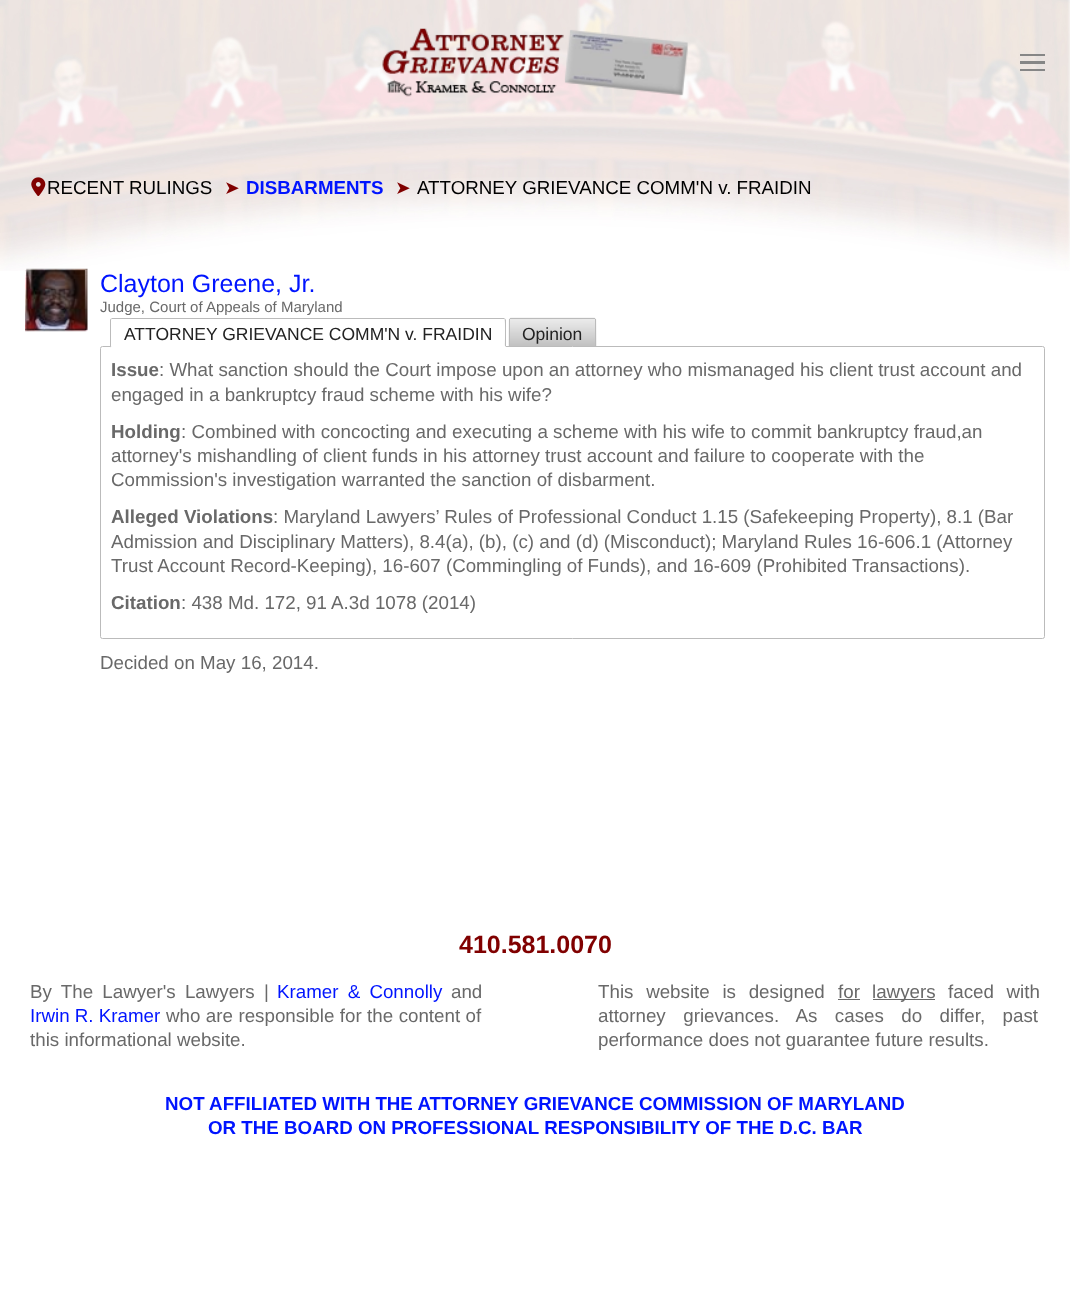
(async () => {
    const canvas = document.querySelector("canvas");
    canvas.width = 1070;
    canvas.height = 1307;
    const context = canvas.getContext("2d");
    context.miterLimit = 4;
    context.fontKerning = "normal";
    function write(s, x, y, font, color) {
        context.font = font;
        context.fillStyle = color;
        context.fillText(s, x, y);
    }
    function block(x, y, w, h, color) {
        context.fillStyle = color;
        context.fillRect(x, y, w, h);
    }
    async function photo(src, x, y, w, h) {
        const img = new Image();
        img.src = src;
        await img.decode();
        context.drawImage(img, x, y, w, h);
    }

    block(0, 0, 1070, 1307, "rgb(255, 255, 255)");
    await photo("media/1.png", 0, 0, 1070, 271);
    await photo("media/2.png", 382, 28, 306, 69);
    block(1020, 54, 25, 2, "rgb(134, 134, 134)");
    block(1020, 61, 25, 3, "rgb(134, 134, 134)");
    block(1020, 69, 25, 2, "rgb(134, 134, 134)");
    await photo("media/3.png", 31, 177, 15, 19);
    write("RECENT RULINGS", 47, 194, "18.75px Liberation Sans", "rgb(0, 0, 0)");
    write("➤", 224, 194, "18.75px DejaVu Sans", "rgb(128, 0, 0)");
    write("DISBARMENTS", 246, 194, "bold 18.75px Liberation Sans", "rgb(0, 20, 255)");
    write("➤", 395, 194, "18.75px DejaVu Sans", "rgb(128, 0, 0)");
    write("ATTORNEY GRIEVANCE COMM'N v. FRAIDIN", 417, 194, "18.75px Liberation Sans", "rgb(0, 0, 0)");
    await photo("media/4.png", 25, 268, 63, 64);
    write("Clayton Greene, Jr.", 100, 292, "25px Liberation Sans", "rgb(0, 20, 255)");
    write("Judge, Court of Appeals of Maryland", 100, 312, "15px Liberation Sans", "rgb(105, 105, 105)");
    context.beginPath();
    context.roundRect(100.5, 346.5, 944, 292, 2);
    context.strokeStyle = "rgb(187, 187, 187)";
    context.stroke();
    context.fillStyle = "rgb(255, 255, 255)";
    context.beginPath();
    context.roundRect(110, 318, 396, 30, [2.5, 2.5, 0, 0]);
    context.fill();
    write("ATTORNEY GRIEVANCE COMM'N v. FRAIDIN", 124, 340, "17.5px Liberation Sans", "rgb(34, 34, 34)");
    context.fillStyle = "rgb(187, 187, 187)";
    context.beginPath();
    context.moveTo(112, 318);
    context.lineTo(111, 318);
    context.lineTo(112, 319);
    context.lineTo(505, 319);
    context.lineTo(504, 318);
    context.closePath();
    context.fill();
    context.beginPath();
    context.moveTo(506, 347);
    context.lineTo(506, 320);
    context.lineTo(505, 318.5);
    context.lineTo(504.5, 319);
    context.bezierCurveTo(505.5, 319.5, 505, 343, 505, 346);
    context.closePath();
    context.fill();
    context.fillStyle = "rgb(255, 255, 255)";
    context.beginPath();
    context.moveTo(506, 348);
    context.lineTo(110, 348);
    context.lineTo(112, 346);
    context.lineTo(505, 346);
    context.closePath();
    context.fill();
    context.fillStyle = "rgb(187, 187, 187)";
    context.beginPath();
    context.moveTo(110, 347.5);
    context.lineTo(111.5, 346);
    context.lineTo(111, 346);
    context.lineTo(111, 320);
    context.lineTo(111.5, 319);
    context.lineTo(111, 318.5);
    context.bezierCurveTo(110.5, 319, 110, 319.5, 110, 320);
    context.closePath();
    context.fill();
    await photo("media/5.png", 508, 317, 89, 29);
    write("Opinion", 522, 340, "17.5px Liberation Sans", "rgb(34, 34, 34)");
    block(510, 318, 85, 1, "rgb(187, 187, 187)");
    block(595, 319, 1, 27, "rgb(187, 187, 187)");
    block(509, 319, 1, 27, "rgb(187, 187, 187)");
    write("Issue", 111, 376, "bold 18.75px Liberation Sans", "rgb(105, 105, 105)");
    write(": What sanction should the Court impose upon an attorney who mismanaged his client trust account and", 159, 376, "18.75px Liberation Sans", "rgb(105, 105, 105)");
    write("engaged in a bankruptcy fraud scheme with his wife?", 111, 401, "18.75px Liberation Sans", "rgb(105, 105, 105)");
    write("Holding", 111, 438, "bold 18.75px Liberation Sans", "rgb(105, 105, 105)");
    write(": Combined with concocting and executing a scheme with his wife to commit bankruptcy fraud,an", 181, 438, "18.75px Liberation Sans", "rgb(105, 105, 105)");
    write("attorney's mishandling of client funds in his attorney trust account and failure to cooperate with the", 111, 462, "18.75px Liberation Sans", "rgb(105, 105, 105)");
    write("Commission's investigation warranted the sanction of disbarment.", 111, 486, "18.75px Liberation Sans", "rgb(105, 105, 105)");
    write("Alleged Violations", 111, 523, "bold 18.75px Liberation Sans", "rgb(105, 105, 105)");
    write(": Maryland Lawyers’ Rules of Professional Conduct 1.15 (Safekeeping Property), 8.1 (Bar", 273, 523, "18.75px Liberation Sans", "rgb(105, 105, 105)");
    write("Admission and Disciplinary Matters), 8.4(a), (b), (c) and (d) (Misconduct); Maryland Rules 16-606.1 (Attorney", 111, 548, "18.75px Liberation Sans", "rgb(105, 105, 105)");
    write("Trust Account Record-Keeping), 16-607 (Commingling of Funds), and 16-609 (Prohibited Transactions).", 111, 572, "18.75px Liberation Sans", "rgb(105, 105, 105)");
    write("Citation", 111, 609, "bold 18.75px Liberation Sans", "rgb(105, 105, 105)");
    write(": 438 Md. 172, 91 A.3d 1078 (2014)", 181, 609, "18.75px Liberation Sans", "rgb(105, 105, 105)");
    write("Decided on May 16, 2014.", 100, 669, "18.75px Liberation Sans", "rgb(105, 105, 105)");
    write("410.581.0070", 459, 953, "bold 25px Liberation Sans", "rgb(128, 0, 0)");
    context.wordSpacing = "4px";
    write("By The Lawyer's Lawyers |", 30, 998, "18.75px Liberation Sans", "rgb(105, 105, 105)");
    write("Kramer & Connolly", 277, 998, "18.75px Liberation Sans", "rgb(0, 20, 255)");
    context.wordSpacing = "0px";
    write("and", 451, 998, "18.75px Liberation Sans", "rgb(105, 105, 105)");
    write("Irwin R. Kramer", 30, 1022, "18.75px Liberation Sans", "rgb(0, 20, 255)");
    context.wordSpacing = "0.25px";
    write("who are responsible for the content of", 166, 1022, "18.75px Liberation Sans", "rgb(105, 105, 105)");
    context.wordSpacing = "0px";
    write("this informational website.", 30, 1046, "18.75px Liberation Sans", "rgb(105, 105, 105)");
    context.wordSpacing = "7.5px";
    write("This website is designed", 598, 998, "18.75px Liberation Sans", "rgb(105, 105, 105)");
    context.wordSpacing = "0px";
    write("for", 838, 998, "18.75px Liberation Sans", "rgb(105, 105, 105)");
    block(838, 999, 22, 1, "rgb(105, 105, 105)");
    block(873, 999, 62, 1, "rgb(105, 105, 105)");
    write("lawyers", 872, 998, "18.75px Liberation Sans", "rgb(105, 105, 105)");
    context.wordSpacing = "7.5px";
    write("faced with", 948, 998, "18.75px Liberation Sans", "rgb(105, 105, 105)");
    context.wordSpacing = "12.25px";
    write("attorney grievances. As cases do differ, past", 598, 1022, "18.75px Liberation Sans", "rgb(105, 105, 105)");
    context.wordSpacing = "0px";
    write("performance does not guarantee future results.", 598, 1046, "18.75px Liberation Sans", "rgb(105, 105, 105)");
    write("NOT AFFILIATED WITH THE ATTORNEY GRIEVANCE COMMISSION OF MARYLAND", 165, 1110, "bold 18.75px Liberation Sans", "rgb(0, 20, 255)");
    write("OR THE BOARD ON PROFESSIONAL RESPONSIBILITY OF THE D.C. BAR", 208, 1134, "bold 18.75px Liberation Sans", "rgb(0, 20, 255)");
})();
